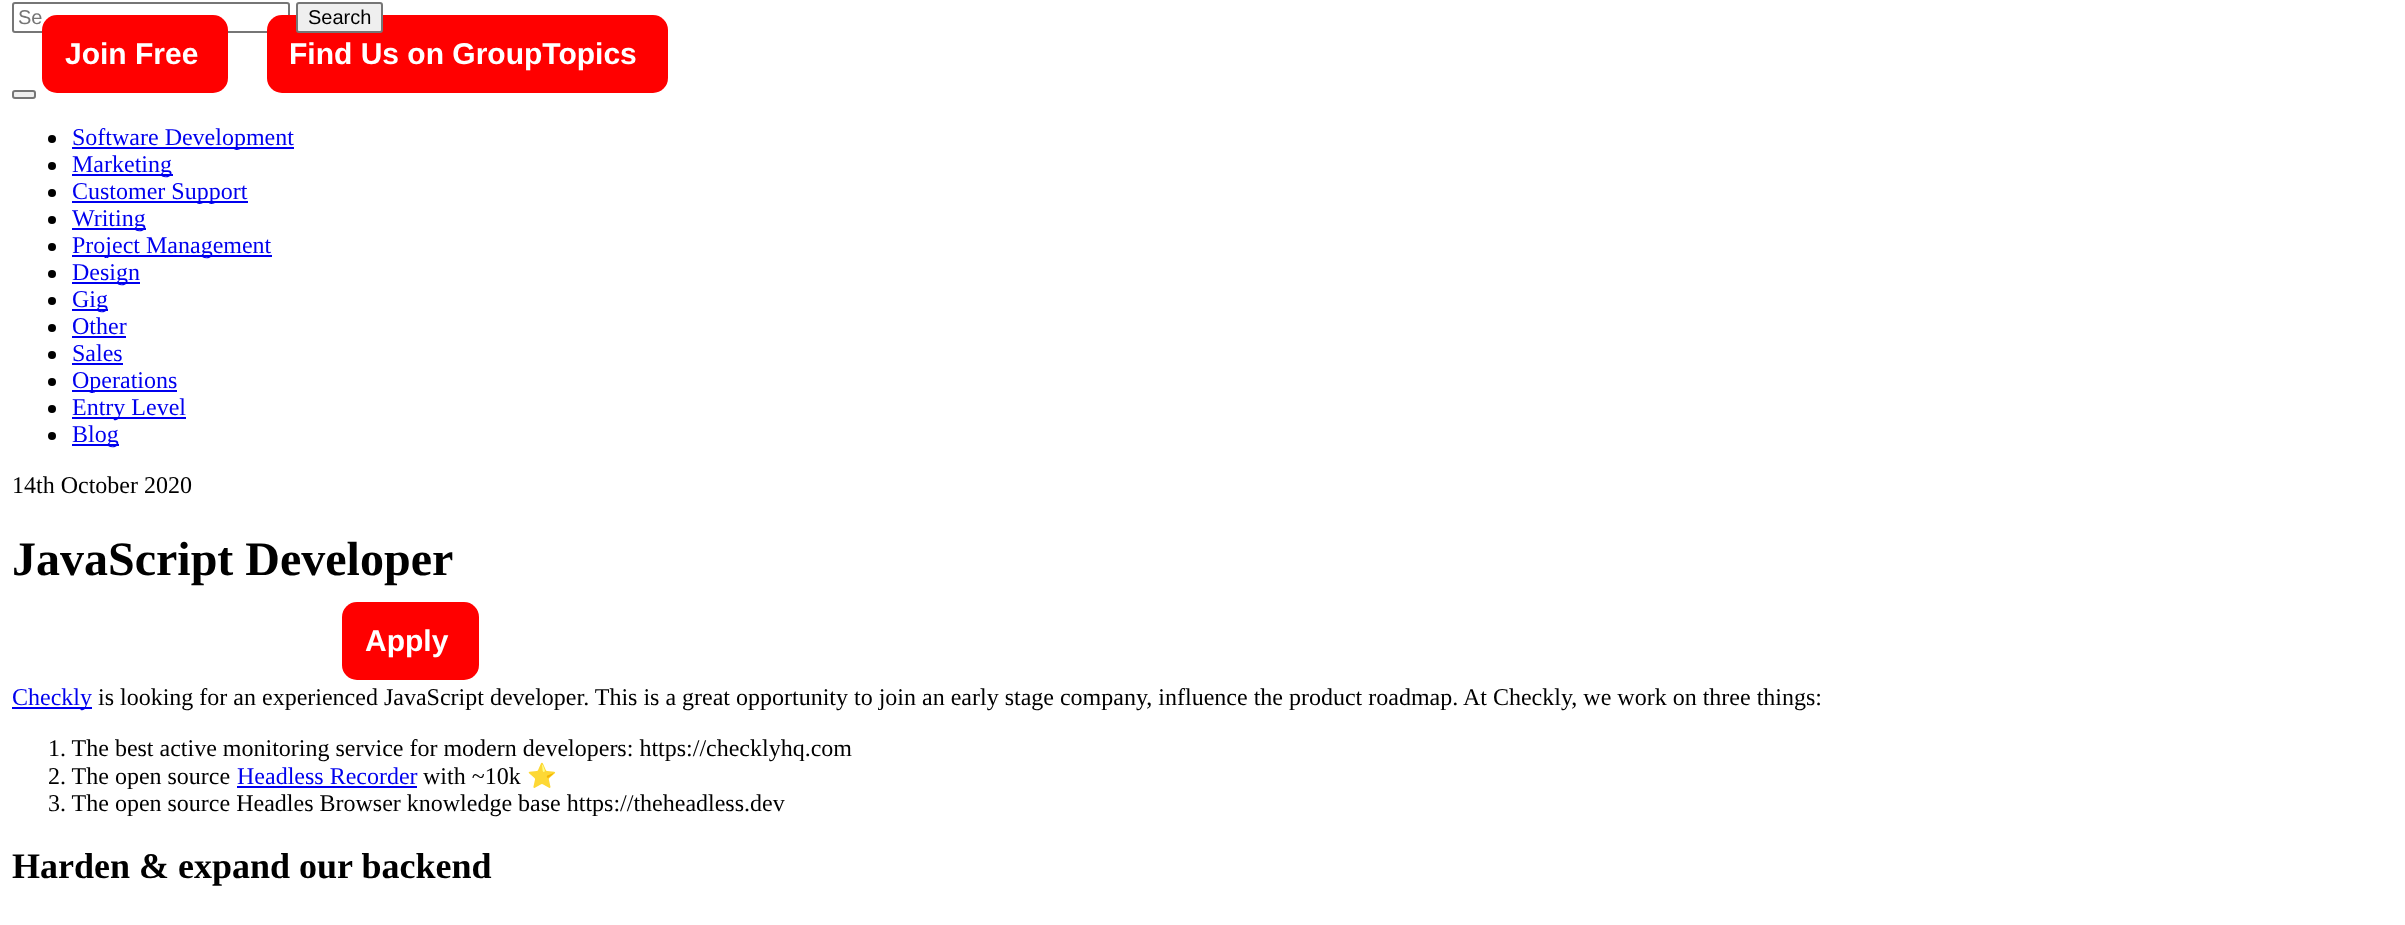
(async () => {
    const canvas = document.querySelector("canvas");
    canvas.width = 2405;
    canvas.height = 925;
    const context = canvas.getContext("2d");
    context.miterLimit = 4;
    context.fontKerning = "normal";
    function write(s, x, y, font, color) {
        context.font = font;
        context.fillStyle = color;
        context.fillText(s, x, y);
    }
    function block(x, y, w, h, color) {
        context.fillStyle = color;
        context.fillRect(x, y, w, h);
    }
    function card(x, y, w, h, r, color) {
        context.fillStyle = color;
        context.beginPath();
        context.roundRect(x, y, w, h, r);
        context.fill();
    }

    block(0, 0, 2405, 925, "rgb(255, 255, 255)");
    context.beginPath();
    context.roundRect(13, 3, 276, 29, 2);
    context.strokeStyle = "rgb(118, 118, 118)";
    context.lineWidth = 2;
    context.stroke();
    write("Se", 18, 24, "20px Liberation Sans", "rgb(117, 117, 117)");
    card(267, 15, 401, 78, 15, "rgb(255, 0, 0)");
    context.fillStyle = "rgb(239, 239, 239)";
    context.beginPath();
    context.roundRect(297, 3, 85, 29, 2);
    context.fill();
    context.stroke();
    write("Search", 308, 24, "20px Liberation Sans", "rgb(0, 0, 0)");
    card(42, 15, 186, 78, 15, "rgb(255, 0, 0)");
    write("Join Free", 65, 64, "bold 30px Liberation Sans", "rgb(255, 255, 255)");
    write("Find Us on GroupTopics", 289, 64, "bold 30px Liberation Sans", "rgb(255, 255, 255)");
    context.fillStyle = "rgb(239, 239, 239)";
    context.beginPath();
    context.roundRect(13, 91, 22, 7, 2);
    context.fill();
    context.stroke();
    context.fillStyle = "rgb(0, 0, 0)";
    context.beginPath();
    context.arc(52, 139, 4, 0, Math.PI * 2);
    context.fill();
    block(72, 147, 222, 2, "rgb(0, 0, 238)");
    write("Software Development", 72, 145, "24px Liberation Serif", "rgb(0, 0, 238)");
    context.fillStyle = "rgb(0, 0, 0)";
    context.beginPath();
    context.arc(52, 166, 4, 0, Math.PI * 2);
    context.fill();
    block(72, 174, 101, 2, "rgb(0, 0, 238)");
    write("Marketing", 72, 172, "24px Liberation Serif", "rgb(0, 0, 238)");
    context.fillStyle = "rgb(0, 0, 0)";
    context.beginPath();
    context.arc(52, 193, 4, 0, Math.PI * 2);
    context.fill();
    block(72, 201, 176, 2, "rgb(0, 0, 238)");
    write("Customer Support", 72, 199, "24px Liberation Serif", "rgb(0, 0, 238)");
    context.fillStyle = "rgb(0, 0, 0)";
    context.beginPath();
    context.arc(52, 220, 4, 0, Math.PI * 2);
    context.fill();
    block(72, 228, 74, 2, "rgb(0, 0, 238)");
    write("Writing", 72, 226, "24px Liberation Serif", "rgb(0, 0, 238)");
    context.fillStyle = "rgb(0, 0, 0)";
    context.beginPath();
    context.arc(52, 247, 4, 0, Math.PI * 2);
    context.fill();
    block(72, 255, 200, 2, "rgb(0, 0, 238)");
    write("Project Management", 72, 253, "24px Liberation Serif", "rgb(0, 0, 238)");
    context.fillStyle = "rgb(0, 0, 0)";
    context.beginPath();
    context.arc(52, 274, 4, 0, Math.PI * 2);
    context.fill();
    block(72, 282, 68, 2, "rgb(0, 0, 238)");
    write("Design", 72, 280, "24px Liberation Serif", "rgb(0, 0, 238)");
    context.fillStyle = "rgb(0, 0, 0)";
    context.beginPath();
    context.arc(52, 301, 4, 0, Math.PI * 2);
    context.fill();
    block(72, 309, 36, 2, "rgb(0, 0, 238)");
    write("Gig", 72, 307, "24px Liberation Serif", "rgb(0, 0, 238)");
    context.fillStyle = "rgb(0, 0, 0)";
    context.beginPath();
    context.arc(52, 328, 4, 0, Math.PI * 2);
    context.fill();
    write("Other", 72, 334, "24px Liberation Serif", "rgb(0, 0, 238)");
    block(72, 336, 54, 2, "rgb(0, 0, 238)");
    context.fillStyle = "rgb(0, 0, 0)";
    context.beginPath();
    context.arc(52, 355, 4, 0, Math.PI * 2);
    context.fill();
    write("Sales", 72, 361, "24px Liberation Serif", "rgb(0, 0, 238)");
    block(72, 363, 51, 2, "rgb(0, 0, 238)");
    context.fillStyle = "rgb(0, 0, 0)";
    context.beginPath();
    context.arc(52, 382, 4, 0, Math.PI * 2);
    context.fill();
    block(72, 390, 105, 2, "rgb(0, 0, 238)");
    write("Operations", 72, 388, "24px Liberation Serif", "rgb(0, 0, 238)");
    context.fillStyle = "rgb(0, 0, 0)";
    context.beginPath();
    context.arc(52, 409, 4, 0, Math.PI * 2);
    context.fill();
    block(72, 417, 114, 2, "rgb(0, 0, 238)");
    write("Entry Level", 72, 415, "24px Liberation Serif", "rgb(0, 0, 238)");
    context.fillStyle = "rgb(0, 0, 0)";
    context.beginPath();
    context.arc(52, 436, 4, 0, Math.PI * 2);
    context.fill();
    block(72, 444, 47, 2, "rgb(0, 0, 238)");
    write("Blog", 72, 442, "24px Liberation Serif", "rgb(0, 0, 238)");
    write("14th October 2020", 12, 493, "24px Liberation Serif", "rgb(0, 0, 0)");
    write("JavaScript Developer", 12, 575, "bold 48px Liberation Serif", "rgb(0, 0, 0)");
    card(342, 602, 137, 78, 15, "rgb(255, 0, 0)");
    write("Apply", 365, 651, "bold 30px Liberation Sans", "rgb(255, 255, 255)");
    block(12, 707, 80, 2, "rgb(0, 0, 238)");
    write("Checkly", 12, 705, "24px Liberation Serif", "rgb(0, 0, 238)");
    write("is looking for an experienced JavaScript developer. This is a great opportunity to join an early stage company, influence the product roadmap. At Checkly, we work on three things:", 98, 705, "24px Liberation Serif", "rgb(0, 0, 0)");
    write("1. The best active monitoring service for modern developers: https://checklyhq.com", 48, 756, "24px Liberation Serif", "rgb(0, 0, 0)");
    write("2. The open source", 48, 784, "24px Liberation Serif", "rgb(0, 0, 0)");
    write("Headless Recorder", 237, 784, "24px Liberation Serif", "rgb(0, 0, 238)");
    block(237, 786, 180, 2, "rgb(0, 0, 238)");
    write("with ~10k", 423, 784, "24px Liberation Serif", "rgb(0, 0, 0)");
    write("⭐️", 527, 784, "24px Noto Color Emoji", "rgb(0, 0, 0)");
    write("3. The open source Headles Browser knowledge base https://theheadless.dev", 48, 811, "24px Liberation Serif", "rgb(0, 0, 0)");
    write("Harden & expand our backend", 12, 878, "bold 36px Liberation Serif", "rgb(0, 0, 0)");
})();
